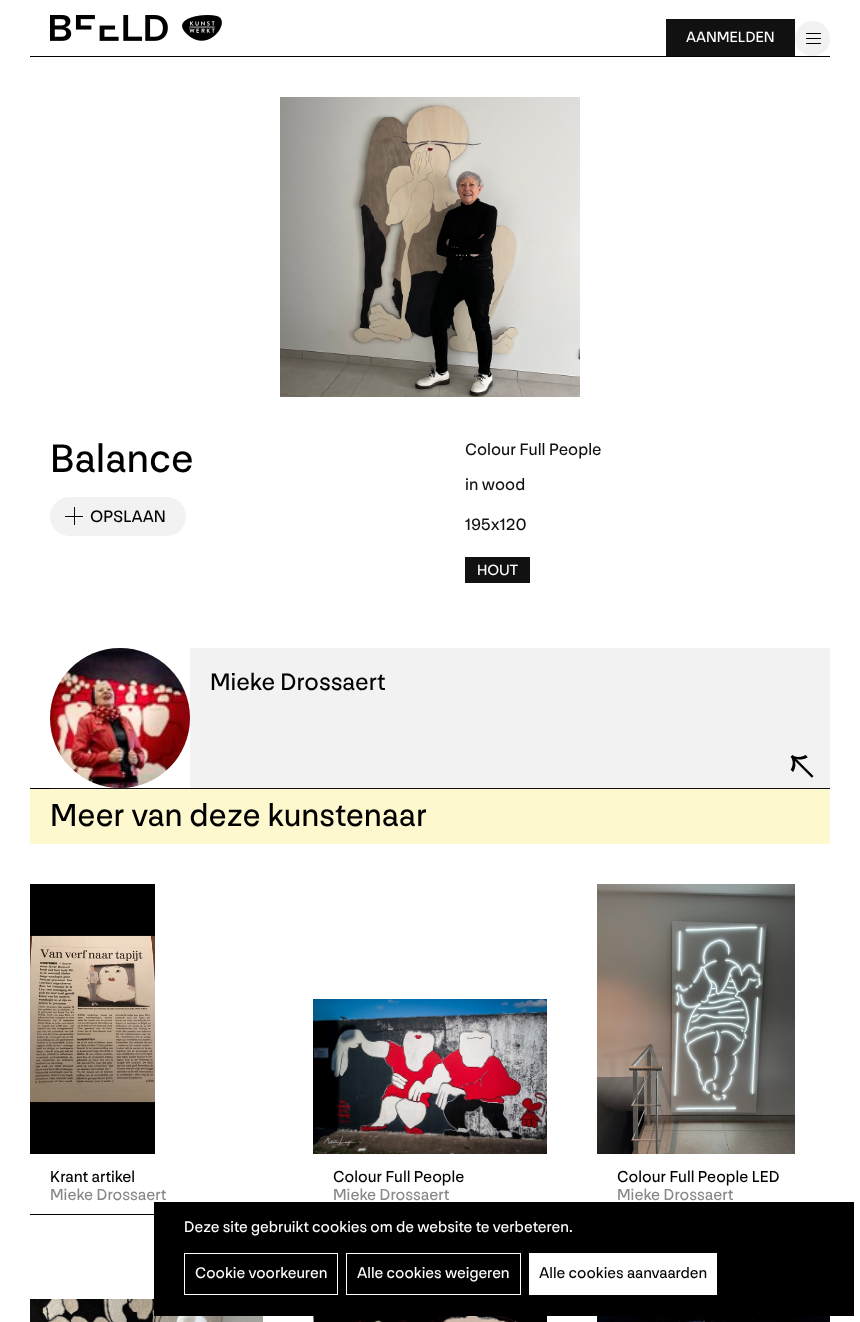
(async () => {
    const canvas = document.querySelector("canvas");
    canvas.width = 860;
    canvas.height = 1322;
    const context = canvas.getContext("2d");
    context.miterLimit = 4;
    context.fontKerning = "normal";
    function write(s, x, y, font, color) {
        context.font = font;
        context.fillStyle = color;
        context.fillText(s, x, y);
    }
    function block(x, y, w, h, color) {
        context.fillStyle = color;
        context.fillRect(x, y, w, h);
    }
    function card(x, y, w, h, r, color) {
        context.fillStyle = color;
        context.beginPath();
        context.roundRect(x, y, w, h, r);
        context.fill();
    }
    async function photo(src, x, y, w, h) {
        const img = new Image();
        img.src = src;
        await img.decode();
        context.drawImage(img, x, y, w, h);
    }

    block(0, 0, 860, 1322, "rgb(255, 255, 255)");
    block(30, 56, 800, 1, "rgb(0, 0, 0)");
    await photo("media/1.png", 50, 15, 118, 26);
    await photo("media/2.png", 182, 15, 40, 26);
    block(666, 19, 129, 37, "rgb(17, 17, 17)");
    write("AANMELDEN", 686, 42, "15.5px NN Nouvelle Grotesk", "rgb(255, 255, 255)");
    context.fillStyle = "rgb(242, 242, 242)";
    context.beginPath();
    context.arc(812.5, 38.5, 17.5, 0, Math.PI * 2);
    context.fill();
    card(806, 33, 15, 1, 0.5, "rgb(0, 0, 0)");
    card(806, 38, 15, 1, 0.5, "rgb(0, 0, 0)");
    card(806, 43, 15, 1, 0.5, "rgb(0, 0, 0)");
    await photo("media/3.png", 280, 97, 300, 300);
    write("Balance", 50, 472, "41.5px NN Nouvelle Grotesk", "rgb(0, 0, 0)");
    card(50, 497, 136, 39, 19.5, "rgb(242, 242, 242)");
    await photo("media/4.png", 65, 507, 18, 18);
    write("OPSLAAN", 90, 522, "17.25px NN Nouvelle Grotesk", "rgb(0, 0, 0)");
    write("Colour Full People", 465, 455, "17.25px NN Nouvelle Grotesk", "rgb(17, 17, 17)");
    write("in wood", 465, 490, "17.25px NN Nouvelle Grotesk", "rgb(17, 17, 17)");
    write("195x120", 465, 530, "17.25px NN Nouvelle Grotesk", "rgb(17, 17, 17)");
    block(465, 557, 65, 26, "rgb(17, 17, 17)");
    write("HOUT", 477, 575, "15.5px NN Nouvelle Grotesk", "rgb(255, 255, 255)");
    block(190, 648, 640, 140, "rgb(242, 242, 242)");
    block(50, 788, 780, 1, "rgb(17, 17, 17)");
    await photo("media/5.png", 50, 648, 140, 140);
    write("Mieke Drossaert", 210, 690, "25px NN Nouvelle Grotesk", "rgb(0, 0, 0)");
    await photo("media/6.png", 790, 755, 24, 23);
    block(30, 788, 20, 1, "rgb(0, 0, 0)");
    block(30, 789, 800, 55, "rgb(253, 248, 206)");
    write("Meer van deze kunstenaar", 50, 826, "33.25px NN Nouvelle Grotesk", "rgb(0, 0, 0)");
    await photo("media/7.png", 30, 884, 125, 270);
    block(30, 1214, 124, 1, "rgb(0, 0, 0)");
    write("Krant artikel", 50, 1182, "16.6px NN Nouvelle Grotesk", "rgb(0, 0, 0)");
    write("Mieke Drossaert", 50, 1200, "16.6px NN Nouvelle Grotesk", "rgb(136, 136, 136)");
    await photo("media/8.png", 313, 999, 234, 155);
    write("Colour Full People", 333, 1182, "16.6px NN Nouvelle Grotesk", "rgb(0, 0, 0)");
    write("Mieke Drossaert", 333, 1200, "16.6px NN Nouvelle Grotesk", "rgb(136, 136, 136)");
    await photo("media/9.png", 597, 884, 198, 270);
    write("Colour Full People LED", 617, 1182, "16.6px NN Nouvelle Grotesk", "rgb(0, 0, 0)");
    write("Mieke Drossaert", 617, 1200, "16.6px NN Nouvelle Grotesk", "rgb(136, 136, 136)");
    await photo("media/10.png", 30, 1299, 233, 23);
    await photo("media/11.png", 313, 1316, 234, 6);
    await photo("media/12.png", 597, 1316, 233, 6);
    block(154, 1202, 700, 114, "rgb(0, 0, 0)");
    write("Deze site gebruikt cookies om de website te verbeteren.", 184, 1232, "16px NN Nouvelle Grotesk", "rgb(255, 255, 255)");
    context.strokeStyle = "rgb(255, 255, 255)";
    context.strokeRect(184.5, 1253.5, 153, 41);
    write("Cookie voorkeuren", 195, 1278, "16px NN Nouvelle Grotesk", "rgb(255, 255, 255)");
    context.strokeRect(346.5, 1253.5, 174, 41);
    write("Alle cookies weigeren", 357, 1278, "16px NN Nouvelle Grotesk", "rgb(255, 255, 255)");
    block(529, 1253, 188, 42, "rgb(255, 255, 255)");
    write("Alle cookies aanvaarden", 539, 1278, "16px NN Nouvelle Grotesk", "rgb(0, 0, 0)");
})();
